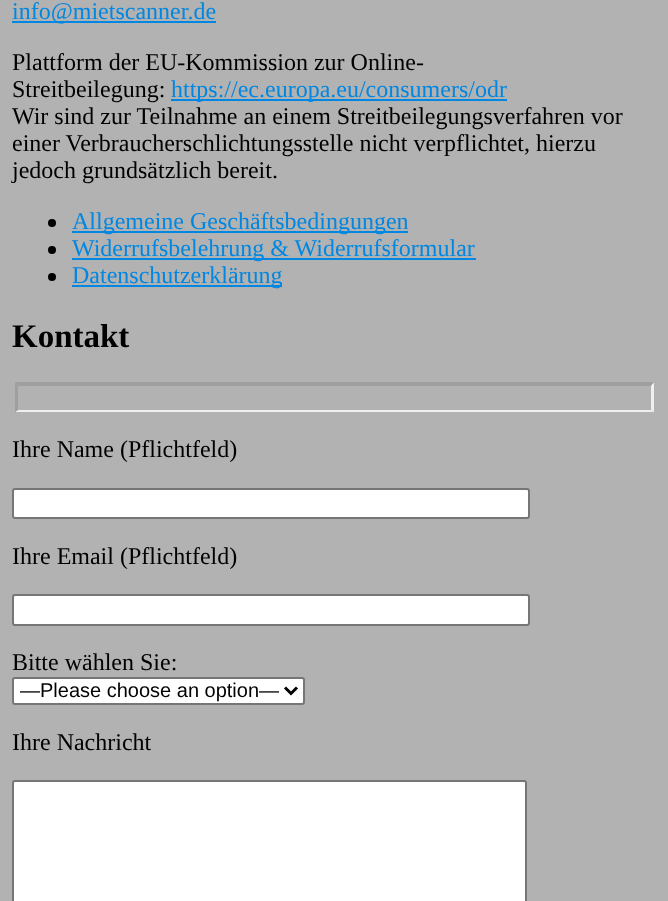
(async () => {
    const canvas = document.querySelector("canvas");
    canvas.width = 668;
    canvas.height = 901;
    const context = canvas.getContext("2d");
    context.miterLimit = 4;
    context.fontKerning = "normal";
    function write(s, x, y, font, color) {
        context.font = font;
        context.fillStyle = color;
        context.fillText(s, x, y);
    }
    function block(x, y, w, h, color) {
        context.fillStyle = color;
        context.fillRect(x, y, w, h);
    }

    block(0, 0, 668, 901, "rgb(178, 178, 178)");
    block(12, 21, 204, 2, "rgb(0, 135, 225)");
    write("info@mietscanner.de", 12, 19, "24px Liberation Serif", "rgb(0, 135, 225)");
    write("Plattform der EU-Kommission zur Online-", 12, 70, "24px Liberation Serif", "rgb(0, 0, 0)");
    write("Streitbeilegung:", 12, 97, "24px Liberation Serif", "rgb(0, 0, 0)");
    block(171, 99, 336, 2, "rgb(0, 135, 225)");
    write("https://ec.europa.eu/consumers/odr", 171, 97, "24px Liberation Serif", "rgb(0, 135, 225)");
    write("Wir sind zur Teilnahme an einem Streitbeilegungsverfahren vor", 12, 124, "24px Liberation Serif", "rgb(0, 0, 0)");
    write("einer Verbraucherschlichtungsstelle nicht verpflichtet, hierzu", 12, 151, "24px Liberation Serif", "rgb(0, 0, 0)");
    write("jedoch grundsätzlich bereit.", 12, 178, "24px Liberation Serif", "rgb(0, 0, 0)");
    context.beginPath();
    context.arc(52, 223, 4, 0, Math.PI * 2);
    context.fill();
    block(72, 231, 336, 2, "rgb(0, 135, 225)");
    write("Allgemeine Geschäftsbedingungen", 72, 229, "24px Liberation Serif", "rgb(0, 135, 225)");
    context.fillStyle = "rgb(0, 0, 0)";
    context.beginPath();
    context.arc(52, 250, 4, 0, Math.PI * 2);
    context.fill();
    block(72, 258, 404, 2, "rgb(0, 135, 225)");
    write("Widerrufsbelehrung & Widerrufsformular", 72, 256, "24px Liberation Serif", "rgb(0, 135, 225)");
    context.fillStyle = "rgb(0, 0, 0)";
    context.beginPath();
    context.arc(52, 277, 4, 0, Math.PI * 2);
    context.fill();
    block(72, 285, 210, 2, "rgb(0, 135, 225)");
    write("Datenschutzerklärung", 72, 283, "24px Liberation Serif", "rgb(0, 135, 225)");
    write("Kontakt", 12, 347, "bold 33px Liberation Serif", "rgb(0, 0, 0)");
    context.fillStyle = "rgb(159, 159, 159)";
    context.beginPath();
    context.moveTo(15, 382);
    context.lineTo(654, 382);
    context.lineTo(651, 386);
    context.lineTo(18, 386);
    context.closePath();
    context.fill();
    context.fillStyle = "rgb(239, 239, 239)";
    context.beginPath();
    context.moveTo(654, 382.5);
    context.lineTo(654, 412.5);
    context.lineTo(651, 409.5);
    context.lineTo(651, 385.5);
    context.closePath();
    context.fill();
    context.beginPath();
    context.moveTo(654, 412);
    context.lineTo(15, 412);
    context.lineTo(18, 410);
    context.lineTo(651, 410);
    context.closePath();
    context.fill();
    context.fillStyle = "rgb(159, 159, 159)";
    context.beginPath();
    context.moveTo(15, 412.5);
    context.lineTo(15, 382.5);
    context.lineTo(18, 385.5);
    context.lineTo(18, 409.5);
    context.closePath();
    context.fill();
    write("Ihre Name (Pflichtfeld)", 12, 457, "24px Liberation Serif", "rgb(0, 0, 0)");
    context.fillStyle = "rgb(255, 255, 255)";
    context.beginPath();
    context.roundRect(13, 489, 516, 29, 2);
    context.fill();
    context.strokeStyle = "rgb(118, 118, 118)";
    context.lineWidth = 2;
    context.stroke();
    write("Ihre Email (Pflichtfeld)", 12, 564, "24px Liberation Serif", "rgb(0, 0, 0)");
    context.fillStyle = "rgb(255, 255, 255)";
    context.beginPath();
    context.roundRect(13, 595, 516, 30, 2);
    context.fill();
    context.stroke();
    write("Bitte wählen Sie:", 12, 670, "24px Liberation Serif", "rgb(0, 0, 0)");
    context.fillStyle = "rgb(255, 255, 255)";
    context.beginPath();
    context.roundRect(13, 678, 291, 26, 2);
    context.fill();
    context.stroke();
    context.beginPath();
    context.moveTo(285, 687.5);
    context.lineTo(291, 693.5);
    context.lineTo(297, 687.5);
    context.strokeStyle = "rgb(0, 0, 0)";
    context.lineWidth = 3;
    context.stroke();
    write("—Please choose an option—", 20, 697, "20px Liberation Sans", "rgb(0, 0, 0)");
    write("Ihre Nachricht", 12, 750, "24px Liberation Serif", "rgb(0, 0, 0)");
    context.fillStyle = "rgb(255, 255, 255)";
    context.beginPath();
    context.roundRect(13, 781, 513, 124, 2);
    context.fill();
    context.strokeStyle = "rgb(118, 118, 118)";
    context.lineWidth = 2;
    context.stroke();
})();
